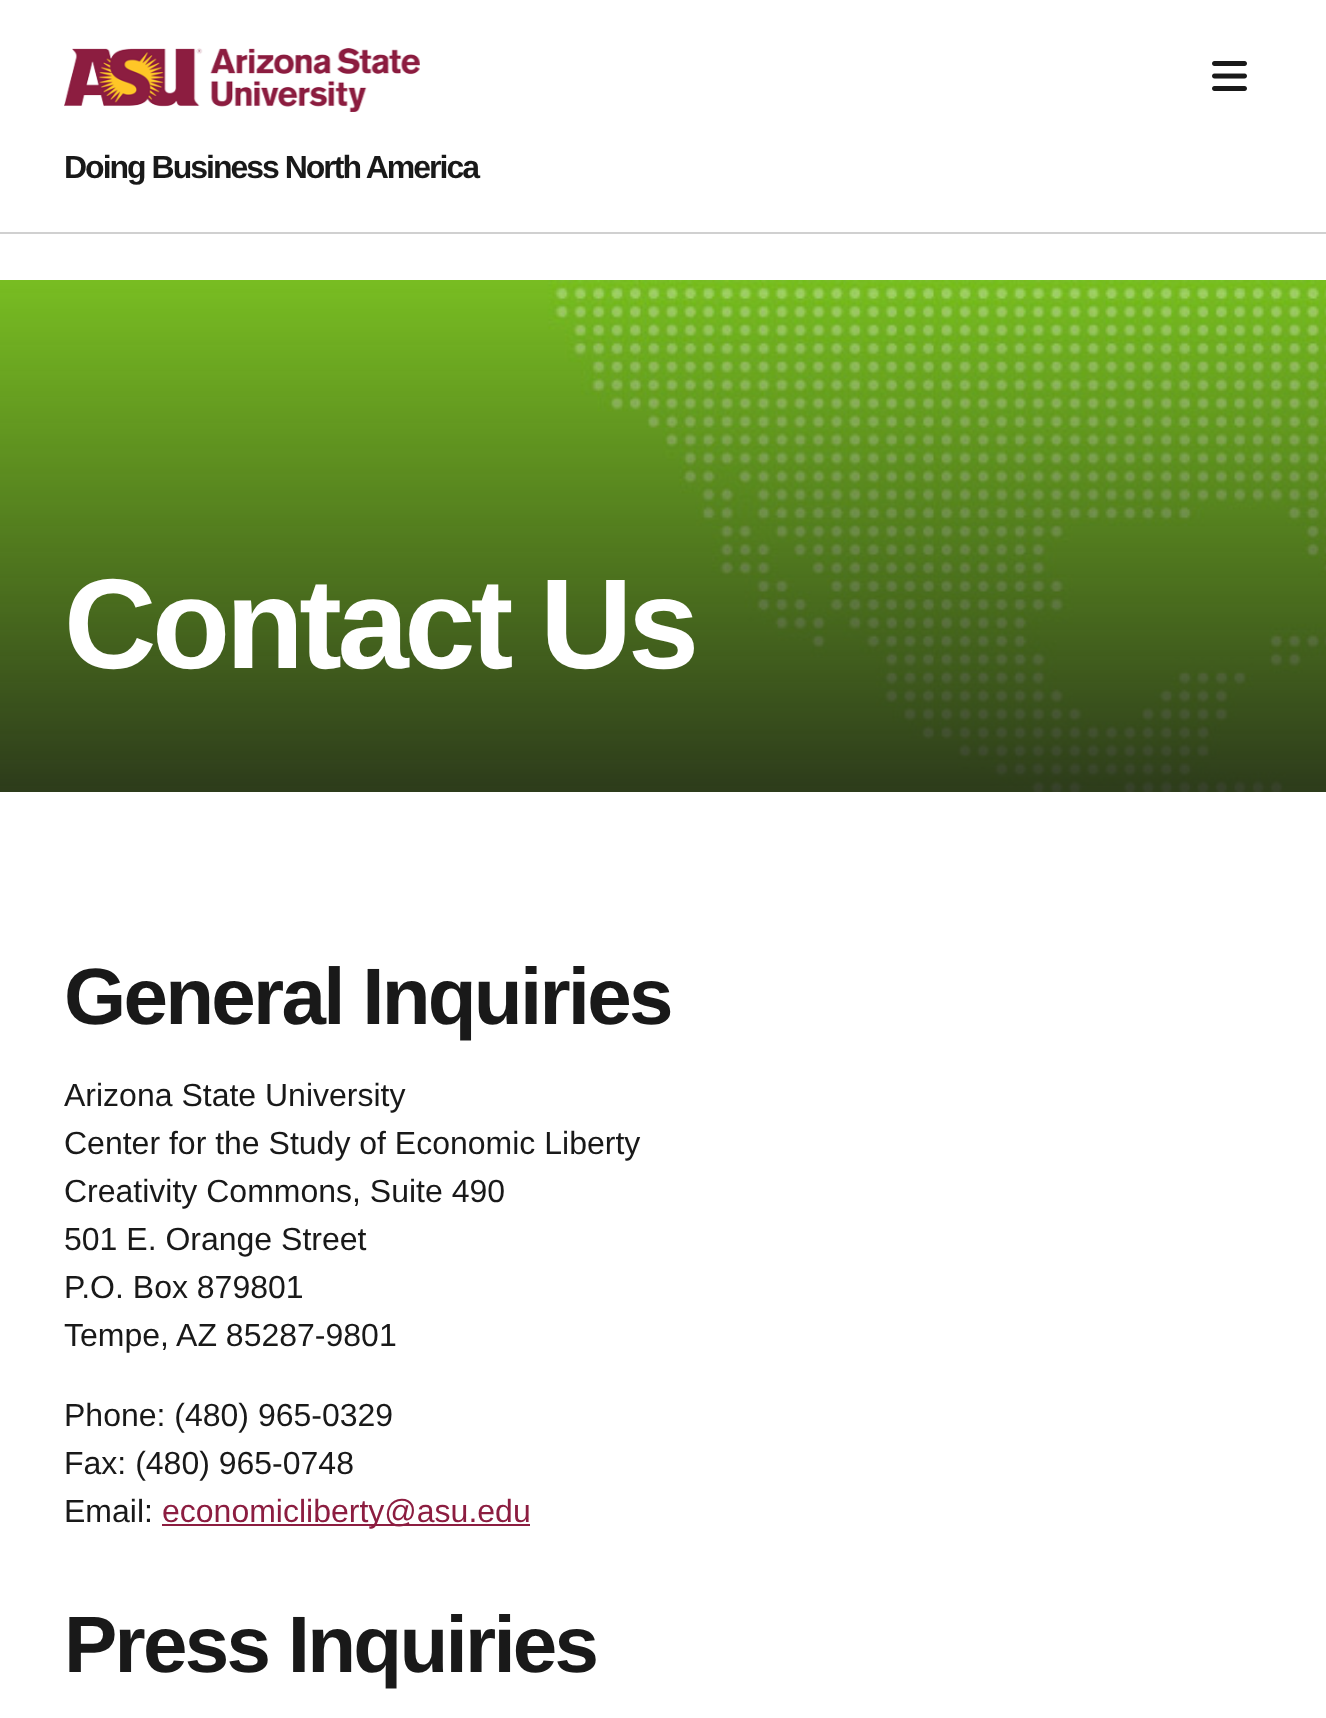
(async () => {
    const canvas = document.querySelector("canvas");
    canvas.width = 1326;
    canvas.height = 1718;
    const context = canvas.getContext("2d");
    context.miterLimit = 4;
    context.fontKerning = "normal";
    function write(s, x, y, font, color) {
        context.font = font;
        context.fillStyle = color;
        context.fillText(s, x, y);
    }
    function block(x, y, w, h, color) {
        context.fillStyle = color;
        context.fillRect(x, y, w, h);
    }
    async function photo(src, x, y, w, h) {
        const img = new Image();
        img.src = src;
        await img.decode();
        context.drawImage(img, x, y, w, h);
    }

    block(0, 0, 1326, 1718, "rgb(255, 255, 255)");
    block(0, 232, 1326, 2, "rgb(208, 208, 208)");
    await photo("media/1.png", 64, 48, 356, 64);
    await photo("media/2.png", 1212, 61, 35, 30);
    context.letterSpacing = "-2px";
    write("Doing Business North America", 64, 178, "bold 32px Liberation Sans", "rgb(25, 25, 25)");
    await photo("media/3.png", 0, 280, 1326, 512);
    context.letterSpacing = "-4.5px";
    write("Contact Us", 64, 668, "bold 128px Liberation Sans", "rgb(255, 255, 255)");
    context.letterSpacing = "-2.75px";
    write("General Inquiries", 64, 1024, "bold 80px Liberation Sans", "rgb(25, 25, 25)");
    context.letterSpacing = "0px";
    write("Arizona State University", 64, 1106, "32px Liberation Sans", "rgb(25, 25, 25)");
    write("Center for the Study of Economic Liberty", 64, 1154, "32px Liberation Sans", "rgb(25, 25, 25)");
    write("Creativity Commons, Suite 490", 64, 1202, "32px Liberation Sans", "rgb(25, 25, 25)");
    write("501 E. Orange Street", 64, 1250, "32px Liberation Sans", "rgb(25, 25, 25)");
    write("P.O. Box 879801", 64, 1298, "32px Liberation Sans", "rgb(25, 25, 25)");
    write("Tempe, AZ 85287-9801", 64, 1346, "32px Liberation Sans", "rgb(25, 25, 25)");
    write("Phone: (480) 965-0329", 64, 1426, "32px Liberation Sans", "rgb(25, 25, 25)");
    write("Fax: (480) 965-0748", 64, 1474, "32px Liberation Sans", "rgb(25, 25, 25)");
    write("Email:", 64, 1522, "32px Liberation Sans", "rgb(25, 25, 25)");
    block(162, 1524, 368, 2, "rgb(140, 29, 64)");
    write("economicliberty@asu.edu", 162, 1522, "32px Liberation Sans", "rgb(140, 29, 64)");
    context.letterSpacing = "-2.75px";
    write("Press Inquiries", 64, 1672, "bold 80px Liberation Sans", "rgb(25, 25, 25)");
})();
